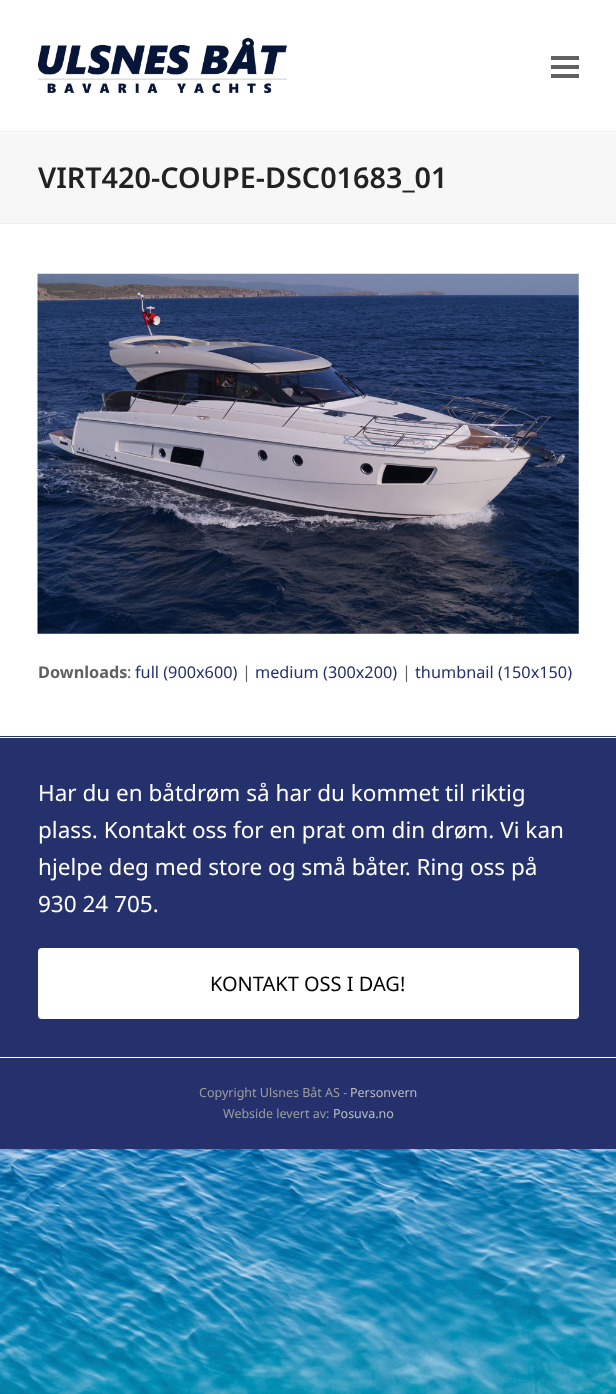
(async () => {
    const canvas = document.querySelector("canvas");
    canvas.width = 616;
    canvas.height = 1394;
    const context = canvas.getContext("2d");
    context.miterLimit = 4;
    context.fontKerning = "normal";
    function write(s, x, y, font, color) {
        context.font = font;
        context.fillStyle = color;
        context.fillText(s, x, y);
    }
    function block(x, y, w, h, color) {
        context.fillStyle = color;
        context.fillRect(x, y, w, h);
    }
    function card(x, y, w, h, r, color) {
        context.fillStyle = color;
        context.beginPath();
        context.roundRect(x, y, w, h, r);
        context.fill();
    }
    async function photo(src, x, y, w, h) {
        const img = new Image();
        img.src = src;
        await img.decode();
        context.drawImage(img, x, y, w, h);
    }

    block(0, 0, 616, 1394, "rgb(255, 255, 255)");
    await photo("media/1.png", 0, 1149, 616, 245);
    await photo("media/2.png", 38, 38, 249, 55);
    block(551, 65, 28, 4, "rgb(97, 97, 97)");
    block(551, 56, 28, 4, "rgb(97, 97, 97)");
    block(551, 74, 28, 4, "rgb(97, 97, 97)");
    block(0, 133, 616, 90, "rgb(247, 247, 247)");
    block(0, 131, 616, 1, "rgb(238, 238, 238)");
    block(0, 223, 616, 1, "rgb(238, 238, 238)");
    write("VIRT420-COUPE-DSC01683_01", 38, 188, "600 28.75px Noto Sans", "rgb(34, 34, 34)");
    await photo("media/3.png", 37, 273, 542, 361);
    write("Downloads", 38, 678, "bold 16.25px Noto Sans", "rgb(97, 97, 97)");
    write(":", 127, 678, "16.25px Noto Sans", "rgb(97, 97, 97)");
    write("full (900x600)", 135, 678, "16.25px Noto Sans", "rgb(36, 49, 108)");
    write("|", 242, 678, "16.25px Noto Sans", "rgb(97, 97, 97)");
    write("medium (300x200)", 255, 678, "16.25px Noto Sans", "rgb(36, 49, 108)");
    write("|", 402, 678, "16.25px Noto Sans", "rgb(97, 97, 97)");
    write("thumbnail (150x150)", 415, 678, "16.25px Noto Sans", "rgb(36, 49, 108)");
    block(0, 738, 616, 319, "rgb(36, 49, 108)");
    block(0, 736, 616, 1, "rgb(36, 49, 108)");
    write("Har du en båtdrøm så har du kommet til riktig", 38, 801, "22.5px Noto Sans", "rgb(255, 255, 255)");
    write("plass. Kontakt oss for en prat om din drøm. Vi kan", 38, 838, "22.5px Noto Sans", "rgb(255, 255, 255)");
    write("hjelpe deg med store og små båter. Ring oss på", 38, 875, "22.5px Noto Sans", "rgb(255, 255, 255)");
    write("930 24 705.", 38, 912, "22.5px Noto Sans", "rgb(255, 255, 255)");
    card(38, 948, 541, 71, 4, "rgb(255, 255, 255)");
    write("KONTAKT OSS I DAG!", 210, 991, "20px Noto Sans", "rgb(2, 2, 2)");
    block(0, 1058, 616, 91, "rgb(36, 49, 108)");
    write("Copyright Ulsnes Båt AS -", 199, 1097, "12.5px Noto Sans", "rgb(158, 158, 158)");
    write("Personvern", 350, 1097, "12.5px Noto Sans", "rgb(189, 189, 189)");
    write("Webside levert av:", 223, 1118, "12.5px Noto Sans", "rgb(158, 158, 158)");
    write("Posuva.no", 333, 1118, "12.5px Noto Sans", "rgb(189, 189, 189)");
})();
